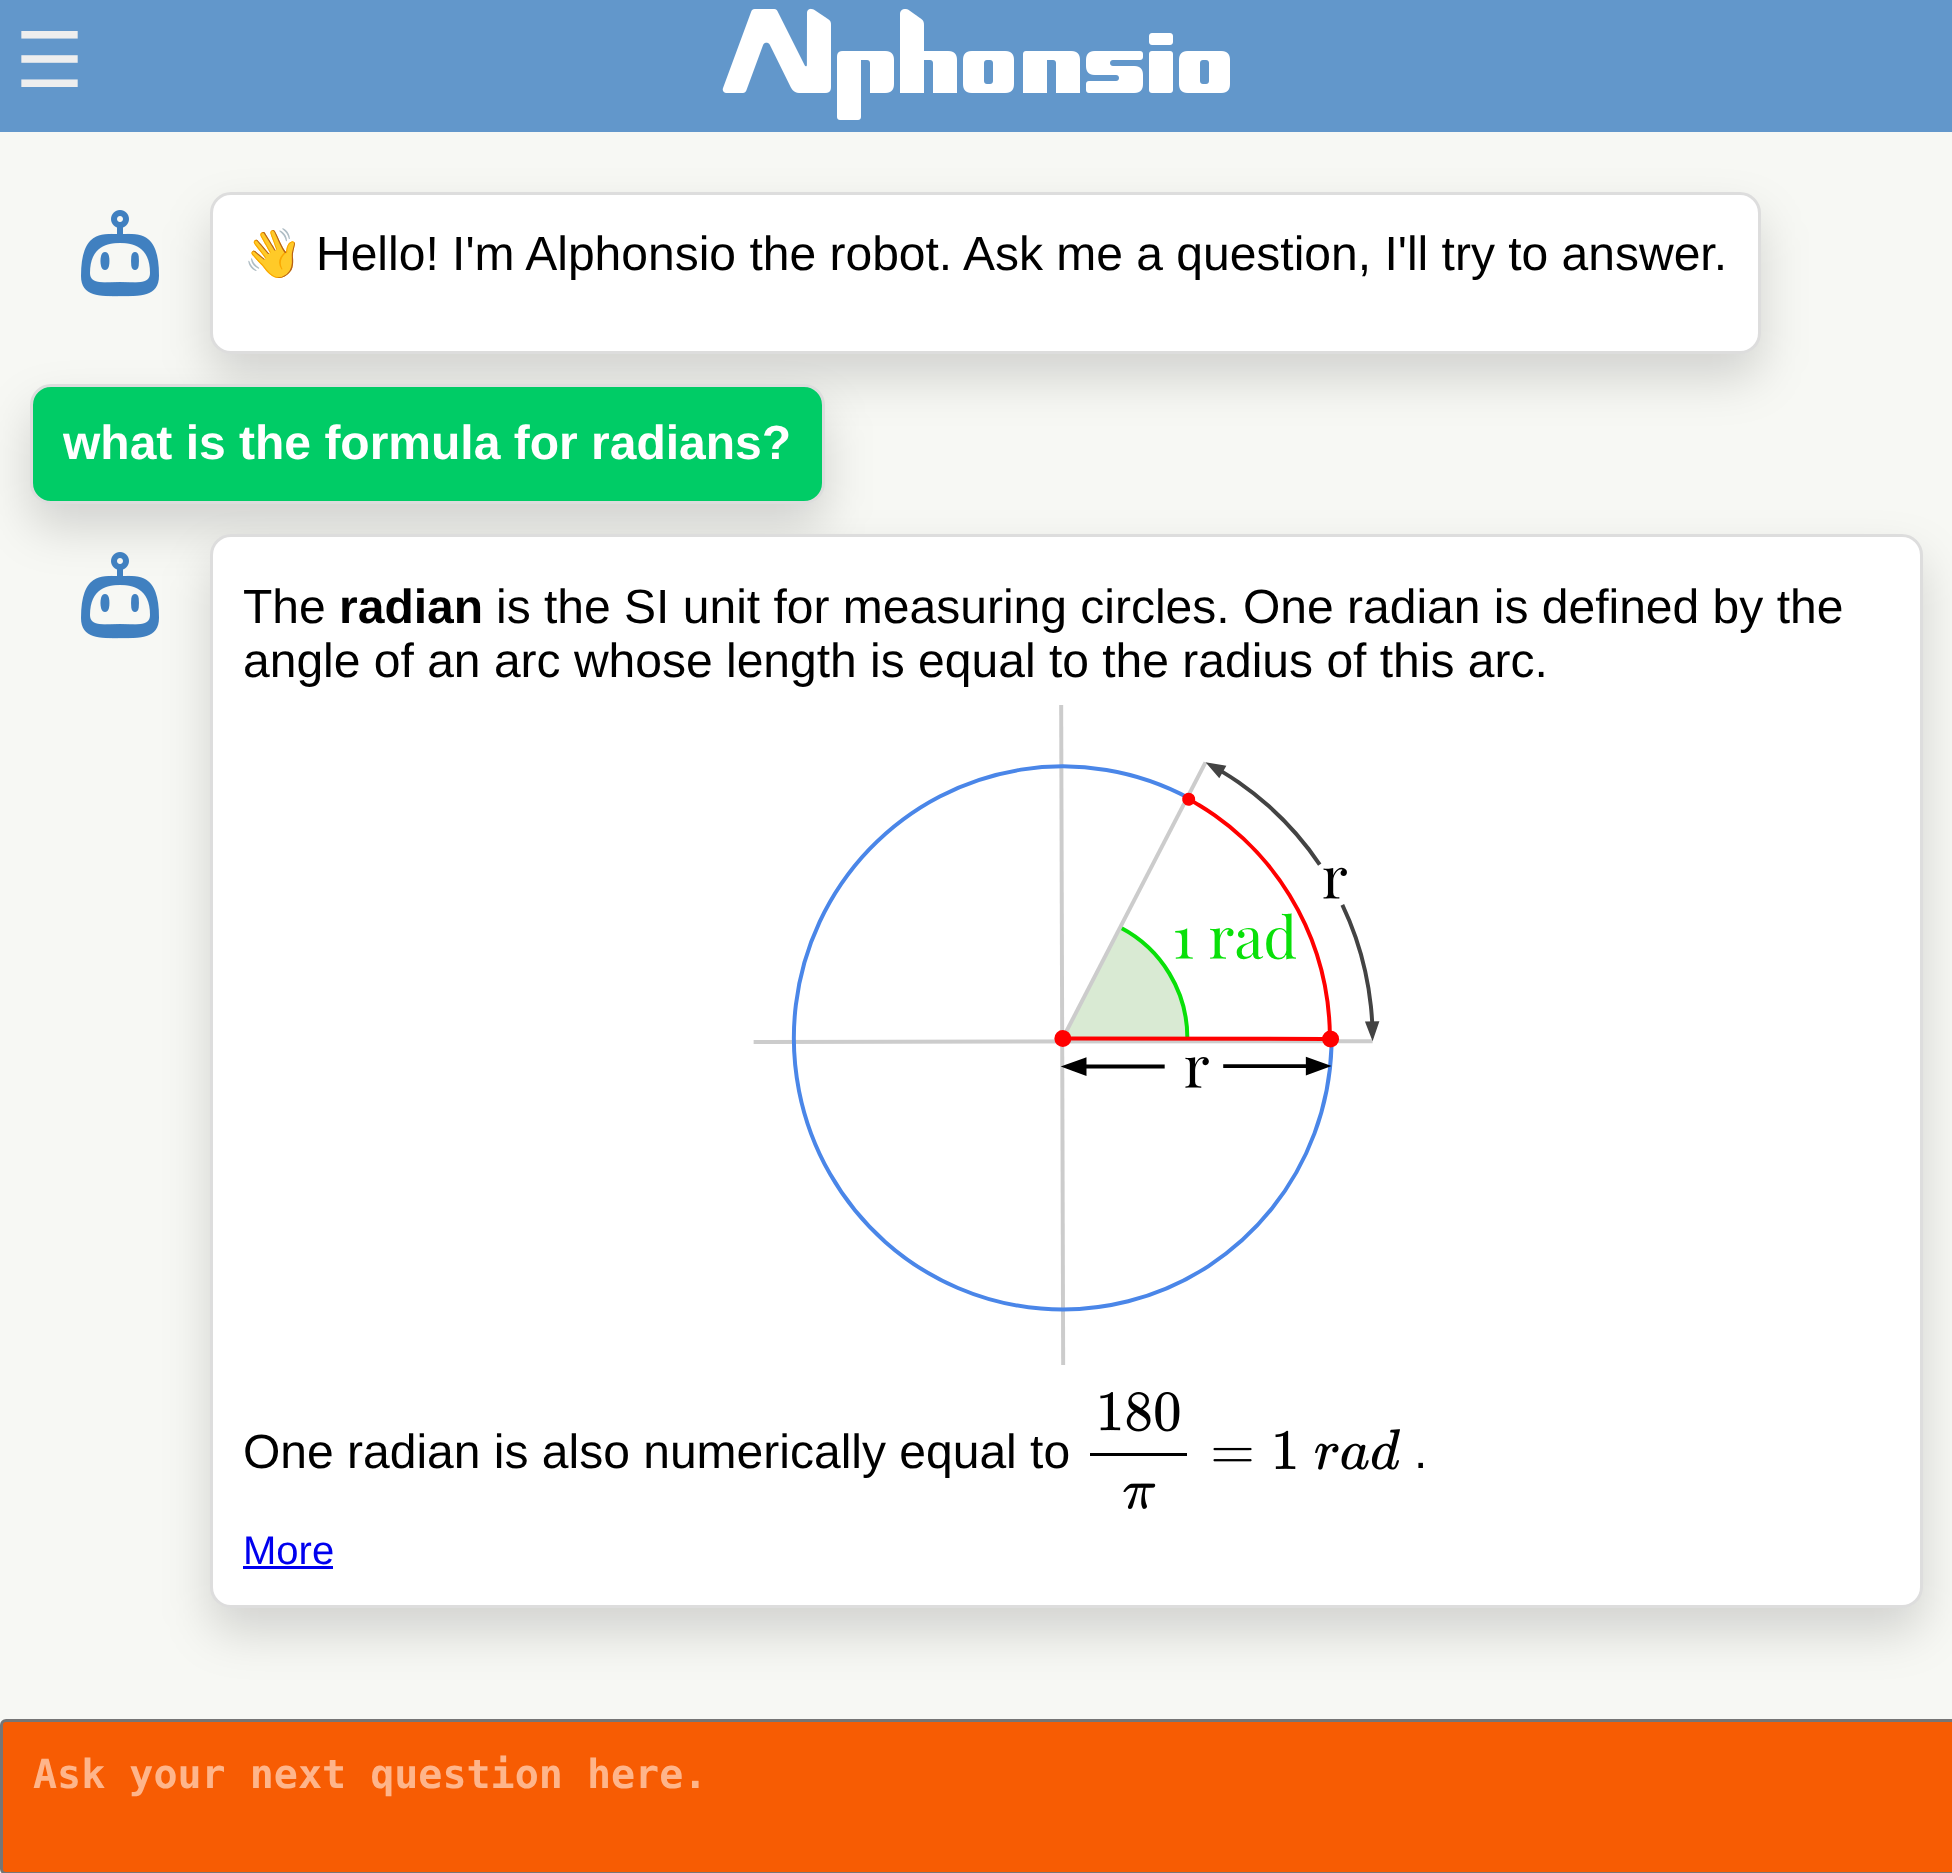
(async () => {
    const canvas = document.querySelector("canvas");
    canvas.width = 1952;
    canvas.height = 1873;
    const context = canvas.getContext("2d");
    context.miterLimit = 4;
    context.fontKerning = "normal";
    function write(s, x, y, font, color) {
        context.font = font;
        context.fillStyle = color;
        context.fillText(s, x, y);
    }
    function block(x, y, w, h, color) {
        context.fillStyle = color;
        context.fillRect(x, y, w, h);
    }
    async function photo(src, x, y, w, h) {
        const img = new Image();
        img.src = src;
        await img.decode();
        context.drawImage(img, x, y, w, h);
    }

    block(0, 0, 1952, 1873, "rgb(247, 248, 244)");
    block(0, 0, 1952, 132, "rgb(98, 151, 203)");
    await photo("media/1.png", 722, 8, 508, 112);
    write("☰", 15, 87, "77px DejaVu Sans", "rgb(238, 238, 238)");
    await photo("media/2.png", 81, 210, 78, 87);
    context.fillStyle = "rgba(0, 0, 0, 0.15)";
    context.filter = "blur(24px)";
    context.beginPath();
    context.roundRect(210, 216, 1551, 162, 21);
    context.fill();
    context.filter = "none";
    context.fillStyle = "rgb(255, 255, 255)";
    context.beginPath();
    context.roundRect(211.5, 193.5, 1548, 159, 19.5);
    context.fill();
    context.strokeStyle = "rgb(221, 221, 221)";
    context.lineWidth = 3;
    context.stroke();
    write("👋", 243, 270, "48px Noto Color Emoji", "rgb(0, 0, 0)");
    write("Hello! I'm Alphonsio the robot. Ask me a question, I'll try to answer.", 316, 270, "48px Liberation Sans", "rgb(0, 0, 0)");
    context.fillStyle = "rgba(0, 0, 0, 0.15)";
    context.filter = "blur(24px)";
    context.beginPath();
    context.roundRect(30, 408, 795, 120, 21);
    context.fill();
    context.filter = "none";
    context.fillStyle = "rgb(0, 204, 102)";
    context.beginPath();
    context.roundRect(31.5, 385.5, 792, 117, 19.5);
    context.fill();
    context.stroke();
    write("what is the formula for radians?", 63, 459, "bold 48px Liberation Sans", "rgb(255, 255, 255)");
    await photo("media/3.png", 81, 552, 78, 87);
    context.fillStyle = "rgba(0, 0, 0, 0.15)";
    context.filter = "blur(24px)";
    context.beginPath();
    context.roundRect(210, 558, 1713, 1074, 21);
    context.fill();
    context.filter = "none";
    context.fillStyle = "rgb(255, 255, 255)";
    context.beginPath();
    context.roundRect(211.5, 535.5, 1710, 1071, 19.5);
    context.fill();
    context.stroke();
    write("The", 243, 623, "48px Liberation Sans", "rgb(0, 0, 0)");
    write("radian", 339, 623, "bold 48px Liberation Sans", "rgb(0, 0, 0)");
    write("is the SI unit for measuring circles. One radian is defined by the", 496, 623, "48px Liberation Sans", "rgb(0, 0, 0)");
    write("angle of an arc whose length is equal to the radius of this arc.", 243, 677, "48px Liberation Sans", "rgb(0, 0, 0)");
    await photo("media/4.png", 753, 705, 627, 660);
    write("One radian is also numerically equal to", 243, 1468, "48px Liberation Sans", "rgb(0, 0, 0)");
    await photo("media/5.png", 1090, 1392, 310, 117);
    write(".", 1414, 1468, "48px Liberation Sans", "rgb(0, 0, 0)");
    write("More", 243, 1564, "40px Liberation Sans", "rgb(0, 0, 238)");
    block(243, 1566, 90, 3, "rgb(0, 0, 238)");
    context.fillStyle = "rgb(247, 92, 3)";
    context.beginPath();
    context.roundRect(1.5, 1720.5, 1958, 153, 4.5);
    context.fill();
    context.strokeStyle = "rgb(118, 118, 118)";
    context.stroke();
    write("Ask your next question here.", 33, 1788, "bold 40px DejaVu Sans Mono", "rgb(254, 181, 139)");
})();
